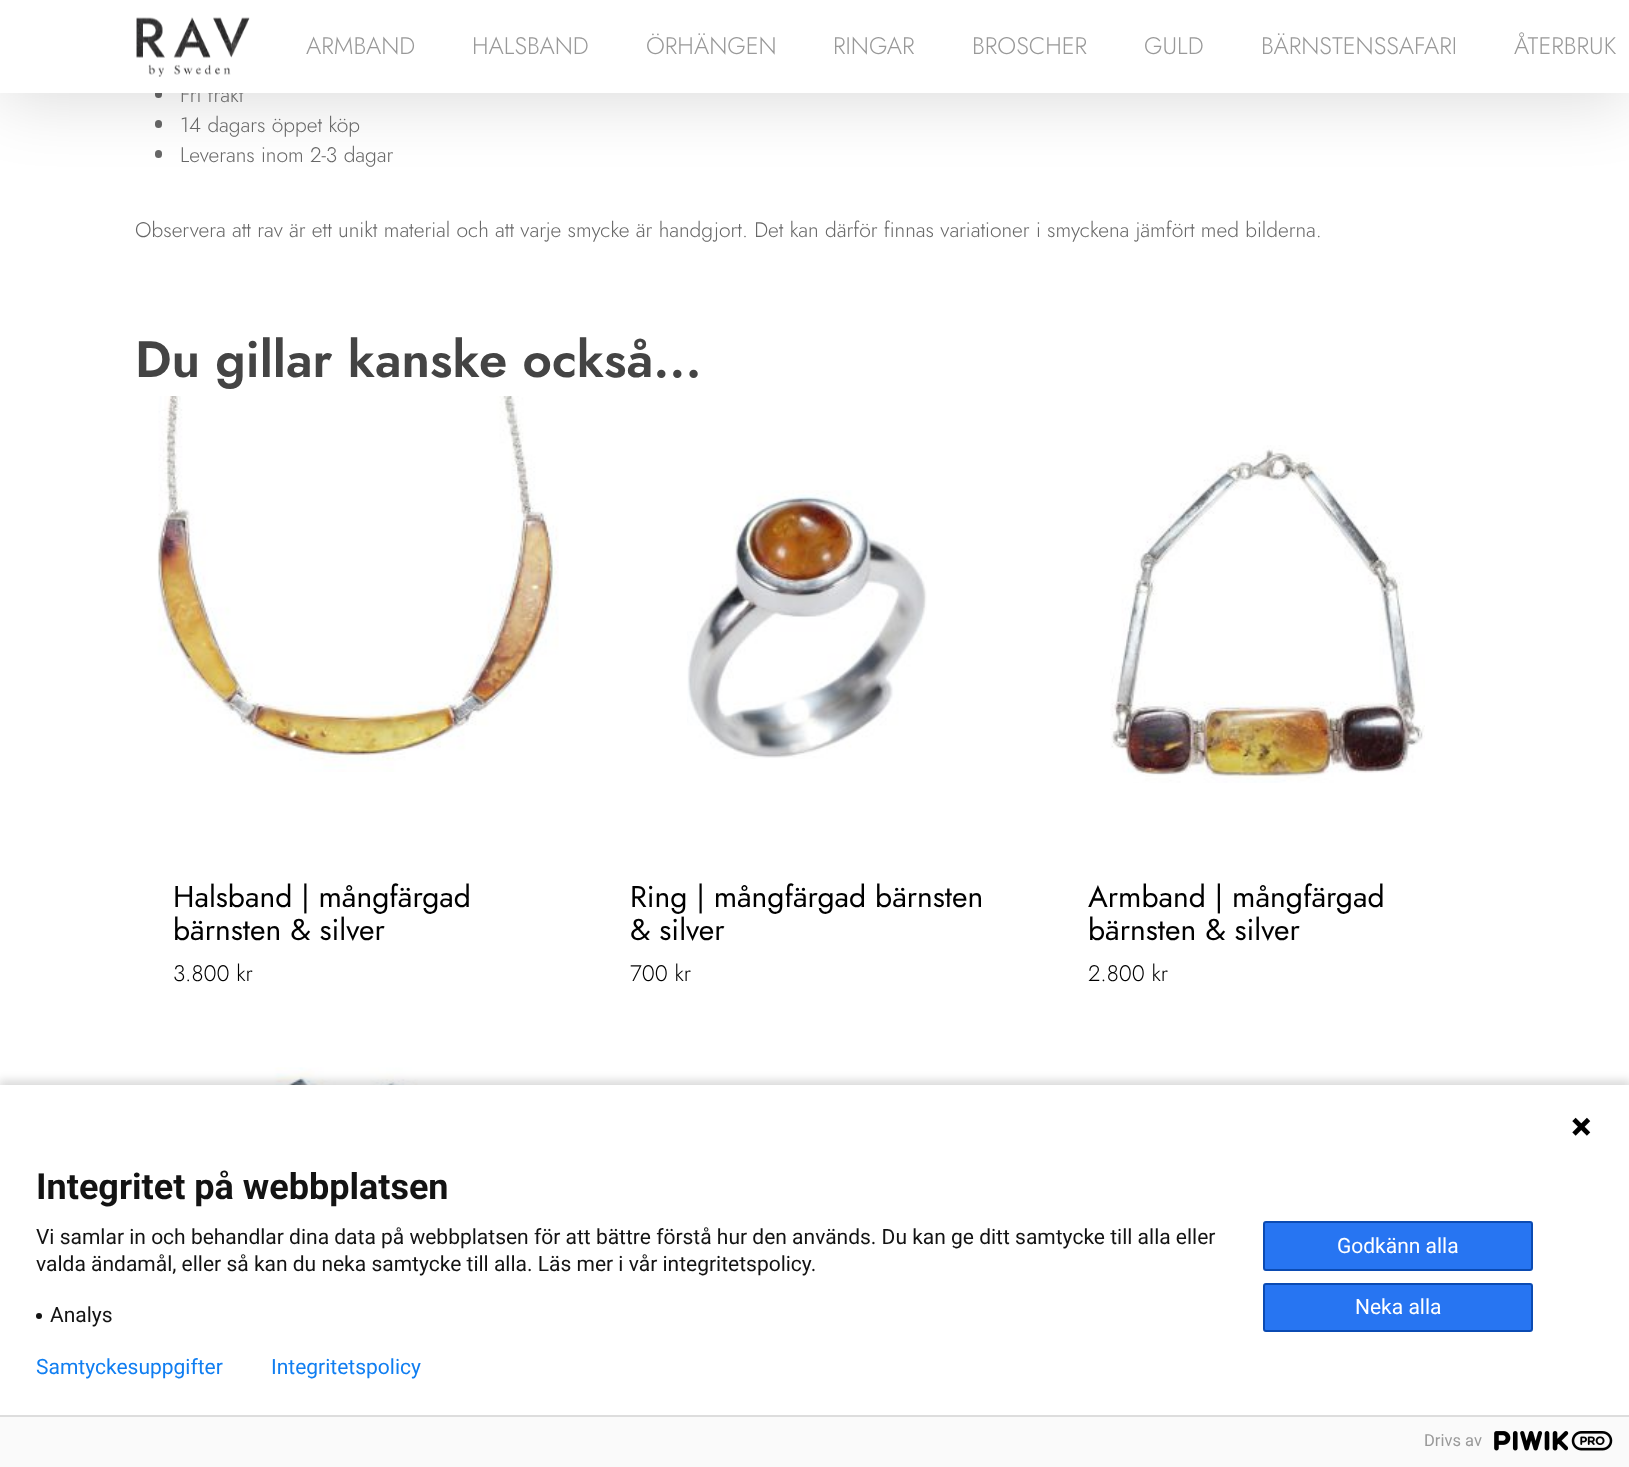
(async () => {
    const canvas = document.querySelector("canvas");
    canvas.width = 1629;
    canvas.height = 1467;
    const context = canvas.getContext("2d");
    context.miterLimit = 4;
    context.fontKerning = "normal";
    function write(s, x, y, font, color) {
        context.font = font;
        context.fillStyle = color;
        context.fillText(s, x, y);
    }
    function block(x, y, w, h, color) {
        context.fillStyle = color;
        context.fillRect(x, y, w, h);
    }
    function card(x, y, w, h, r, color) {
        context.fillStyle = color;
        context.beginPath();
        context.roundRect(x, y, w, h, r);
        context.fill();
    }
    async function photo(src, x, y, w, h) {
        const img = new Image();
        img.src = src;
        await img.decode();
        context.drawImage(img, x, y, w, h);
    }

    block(0, 0, 1629, 1467, "rgb(255, 255, 255)");
    card(155, 90, 7, 8, 3.5, "rgb(103, 103, 103)");
    card(155, 120, 7, 8, 3.5, "rgb(103, 103, 103)");
    card(155, 150, 7, 8, 3.5, "rgb(103, 103, 103)");
    context.fillStyle = "rgba(0, 0, 0, 0.15)";
    context.filter = "blur(34px)";
    context.beginPath();
    context.rect(0, -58, 1629, 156);
    context.fill();
    context.filter = "none";
    write("Fri frakt", 180, 102, "300 21px Jost", "rgb(103, 103, 103)");
    block(0, 0, 1629, 93, "rgb(255, 255, 255)");
    await photo("media/1.png", 136, 17, 114, 60);
    write("ARMBAND", 306, 54, "300 24px Jost", "rgb(153, 153, 153)");
    write("HALSBAND", 472, 54, "300 24px Jost", "rgb(153, 153, 153)");
    write("ÖRHÄNGEN", 646, 54, "300 24px Jost", "rgb(153, 153, 153)");
    write("RINGAR", 833, 54, "300 24px Jost", "rgb(153, 153, 153)");
    write("BROSCHER", 972, 54, "300 24px Jost", "rgb(153, 153, 153)");
    write("GULD", 1144, 54, "300 24px Jost", "rgb(153, 153, 153)");
    write("BÄRNSTENSSAFARI", 1261, 54, "300 24px Jost", "rgb(153, 153, 153)");
    write("ÅTERBRUK", 1514, 54, "300 24px Jost", "rgb(153, 153, 153)");
    write("14 dagars öppet köp", 180, 132, "300 21px Jost", "rgb(103, 103, 103)");
    write("Leverans inom 2-3 dagar", 180, 162, "300 21px Jost", "rgb(103, 103, 103)");
    write("Observera att rav är ett unikt material och att varje smycke är handgjort. Det kan därför finnas variationer i smyckena jämfört med bilderna.", 135, 237, "300 21px Jost", "rgb(103, 103, 103)");
    write("Du gillar kanske också...", 135, 377, "600 51px Jost", "rgb(68, 68, 68)");
    await photo("media/2.png", 157, 396, 402, 376);
    write("Halsband | mångfärgad", 173, 907, "30px Jost", "rgb(0, 0, 0)");
    write("bärnsten & silver", 173, 940, "30px Jost", "rgb(0, 0, 0)");
    write("3.800 kr", 173, 981, "300 22.5px Jost", "rgb(0, 0, 0)");
    await photo("media/3.png", 687, 490, 240, 269);
    write("Ring | mångfärgad bärnsten", 630, 907, "30px Jost", "rgb(0, 0, 0)");
    write("& silver", 630, 940, "30px Jost", "rgb(0, 0, 0)");
    write("700 kr", 630, 981, "300 22.5px Jost", "rgb(0, 0, 0)");
    await photo("media/4.png", 1110, 445, 315, 338);
    write("Armband | mångfärgad", 1088, 907, "30px Jost", "rgb(0, 0, 0)");
    write("bärnsten & silver", 1088, 940, "30px Jost", "rgb(0, 0, 0)");
    write("2.800 kr", 1088, 981, "300 22.5px Jost", "rgb(0, 0, 0)");
    await photo("media/5.png", 182, 1067, 331, 18);
    context.fillStyle = "rgba(0, 0, 0, 0.14)";
    context.filter = "blur(4px)";
    context.beginPath();
    context.rect(-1, 1080, 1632, 386);
    context.fill();
    context.filter = "none";
    block(0, 1085, 1629, 330, "rgb(255, 255, 255)");
    await photo("media/6.png", 1572, 1117, 19, 19);
    write("Integritet på webbplatsen", 36, 1199, "bold 36px Roboto", "rgb(19, 19, 19)");
    write("Vi samlar in och behandlar dina data på webbplatsen för att bättre förstå hur den används. Du kan ge ditt samtycke till alla eller", 36, 1244, "21px Roboto", "rgb(19, 19, 19)");
    write("valda ändamål, eller så kan du neka samtycke till alla. Läs mer i vår integritetspolicy.", 36, 1271, "21px Roboto", "rgb(19, 19, 19)");
    context.beginPath();
    context.arc(39, 1316, 3, 0, Math.PI * 2);
    context.fill();
    write("Analys", 50, 1322, "21px Roboto", "rgb(19, 19, 19)");
    context.fillStyle = "rgb(39, 117, 242)";
    context.beginPath();
    context.roundRect(1264, 1222, 268, 48, 2);
    context.fill();
    context.strokeStyle = "rgb(11, 75, 179)";
    context.lineWidth = 2;
    context.stroke();
    write("Godkänn alla", 1337, 1253, "21px Roboto", "rgb(255, 255, 255)");
    context.fillStyle = "rgb(39, 117, 242)";
    context.beginPath();
    context.roundRect(1264, 1284, 268, 47, 2);
    context.fill();
    context.stroke();
    write("Neka alla", 1355, 1314, "21px Roboto", "rgb(255, 255, 255)");
    write("Samtyckesuppgifter", 36, 1374, "21px Roboto", "rgb(16, 126, 241)");
    write("Integritetspolicy", 271, 1374, "21px Roboto", "rgb(16, 126, 241)");
    block(0, 1417, 1629, 50, "rgb(250, 250, 250)");
    block(0, 1415, 1629, 2, "rgb(221, 221, 221)");
    write("Drivs av", 1424, 1446, "16.5px Roboto", "rgb(153, 153, 153)");
    await photo("media/7.png", 1494, 1431, 119, 20);
})();
